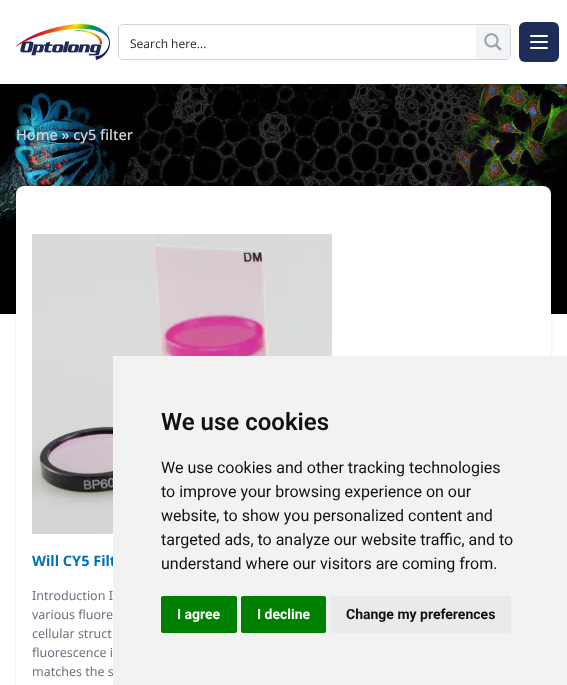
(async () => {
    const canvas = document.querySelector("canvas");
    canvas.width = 567;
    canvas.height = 685;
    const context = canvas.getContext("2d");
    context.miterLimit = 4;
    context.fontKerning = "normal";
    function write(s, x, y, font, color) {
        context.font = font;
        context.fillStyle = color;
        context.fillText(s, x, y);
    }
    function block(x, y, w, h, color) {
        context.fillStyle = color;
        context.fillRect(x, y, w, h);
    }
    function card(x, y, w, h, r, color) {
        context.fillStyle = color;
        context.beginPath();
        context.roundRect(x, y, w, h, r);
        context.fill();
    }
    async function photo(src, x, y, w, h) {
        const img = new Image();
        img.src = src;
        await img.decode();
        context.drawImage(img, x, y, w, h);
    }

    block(0, 0, 567, 685, "rgb(255, 255, 255)");
    await photo("media/1.png", 16, 24, 94, 36);
    context.beginPath();
    context.roundRect(118.5, 24.5, 392, 35, 4.5);
    context.strokeStyle = "rgb(209, 213, 219)";
    context.stroke();
    write("Search here...", 130, 48, "12px Open Sans", "rgb(38, 38, 38)");
    context.fillStyle = "rgb(243, 244, 246)";
    context.beginPath();
    context.roundRect(476, 25, 34, 34, [0, 4, 4, 0]);
    context.fill();
    await photo("media/2.png", 484, 33, 18, 18);
    card(519, 22, 40, 40, 6, "rgb(30, 45, 88)");
    context.beginPath();
    context.moveTo(531, 36);
    context.lineTo(547, 36);
    context.moveTo(531, 42);
    context.lineTo(547, 42);
    context.moveTo(531, 48);
    context.lineTo(547, 48);
    context.strokeStyle = "rgb(255, 255, 255)";
    context.lineWidth = 2;
    context.lineCap = "round";
    context.lineJoin = "round";
    context.stroke();
    await photo("media/3.png", 0, 84, 567, 230);
    write("Home » cy5 filter", 16, 140, "500 14.5px Noto Sans", "rgb(209, 213, 219)");
    context.fillStyle = "rgba(0, 0, 0, 0.1)";
    context.filter = "blur(1.5px)";
    context.beginPath();
    context.roundRect(16, 187, 535, 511, 8);
    context.fill();
    context.filter = "none";
    card(16, 186, 535, 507, 8, "rgb(255, 255, 255)");
    await photo("media/4.png", 32, 234, 300, 300);
    write("Will CY5 Filt", 32, 566, "bold 14.5px Noto Sans", "rgb(3, 113, 177)");
    write("Introduction I", 32, 600, "12.5px Noto Sans", "rgb(107, 114, 128)");
    write("various fluore", 32, 619, "12.5px Noto Sans", "rgb(107, 114, 128)");
    write("cellular struct", 32, 638, "12.5px Noto Sans", "rgb(107, 114, 128)");
    write("fluorescence i", 32, 657, "12.5px Noto Sans", "rgb(107, 114, 128)");
    write("matches the s", 32, 676, "12.5px Noto Sans", "rgb(107, 114, 128)");
    block(113, 356, 454, 329, "rgb(242, 242, 242)");
    write("We use cookies", 161, 430, "600 24px Roboto", "rgb(17, 17, 17)");
    write("We use cookies and other tracking technologies", 161, 473, "16px Roboto", "rgb(17, 17, 17)");
    write("to improve your browsing experience on our", 161, 497, "16px Roboto", "rgb(17, 17, 17)");
    write("website, to show you personalized content and", 161, 521, "16px Roboto", "rgb(17, 17, 17)");
    write("targeted ads, to analyze our website traffic, and to", 161, 545, "16px Roboto", "rgb(17, 17, 17)");
    write("understand where our visitors are coming from.", 161, 569, "16px Roboto", "rgb(17, 17, 17)");
    card(161, 596, 76, 37, 2, "rgb(0, 128, 0)");
    write("I agree", 177, 619, "bold 14px Roboto", "rgb(255, 255, 255)");
    card(241, 596, 85, 37, 2, "rgb(0, 128, 0)");
    write("I decline", 257, 619, "bold 14px Roboto", "rgb(255, 255, 255)");
    card(330, 596, 181, 37, 2, "rgb(234, 234, 234)");
    write("Change my preferences", 346, 619, "bold 14px Roboto", "rgb(17, 17, 17)");
})();
